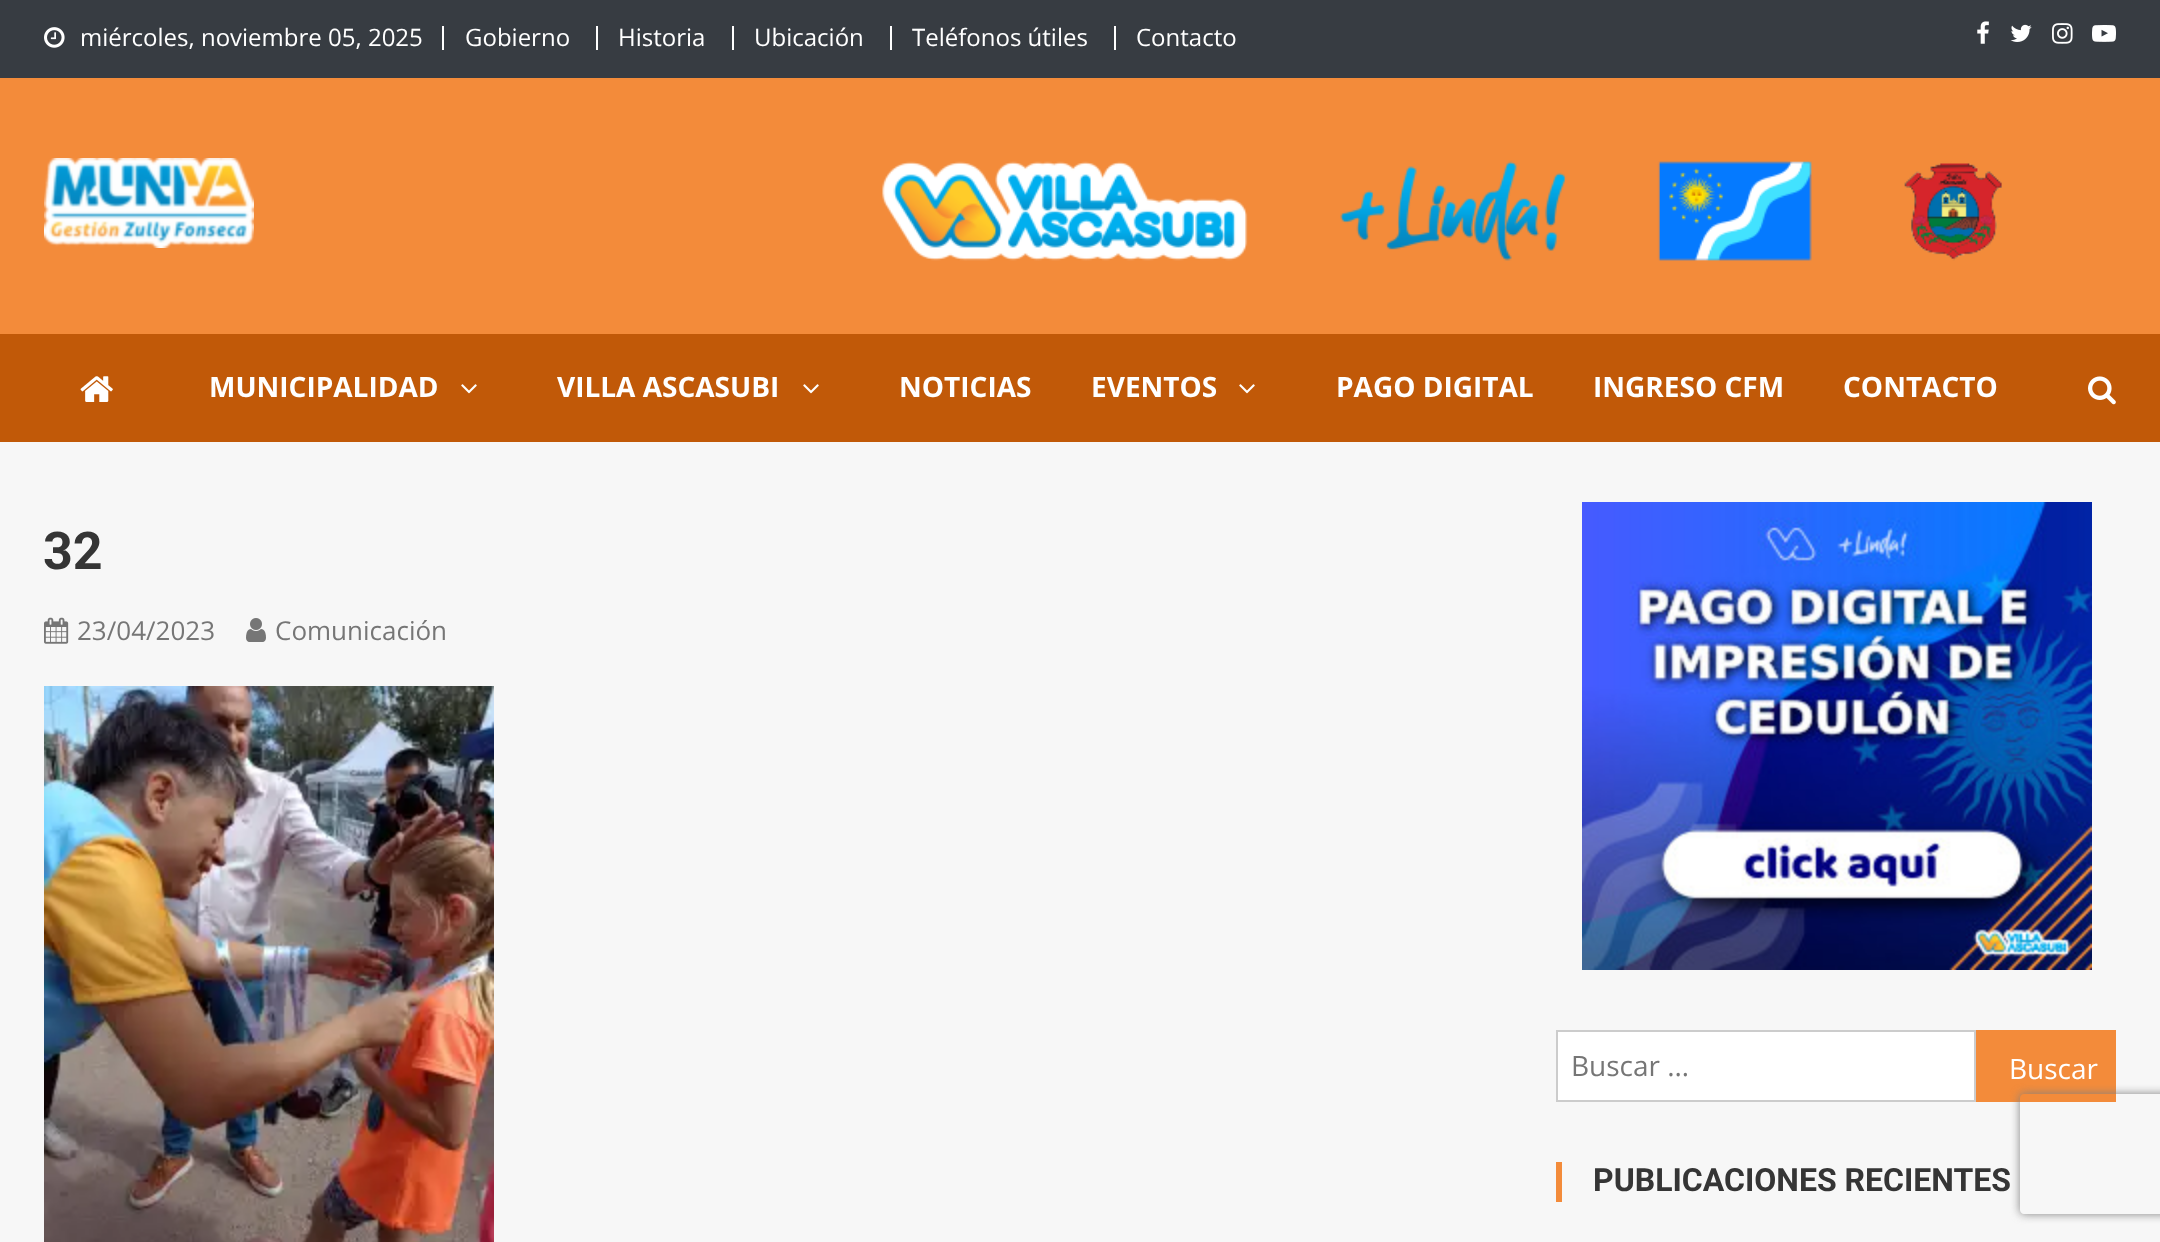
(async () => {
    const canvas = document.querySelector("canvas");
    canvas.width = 2160;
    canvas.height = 1242;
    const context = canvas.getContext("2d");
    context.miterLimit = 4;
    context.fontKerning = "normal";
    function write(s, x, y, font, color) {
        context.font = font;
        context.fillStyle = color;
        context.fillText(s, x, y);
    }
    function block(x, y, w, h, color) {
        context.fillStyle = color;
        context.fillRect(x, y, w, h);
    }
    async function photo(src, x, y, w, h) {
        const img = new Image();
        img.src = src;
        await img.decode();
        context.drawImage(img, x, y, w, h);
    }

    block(0, 0, 2160, 1242, "rgb(247, 247, 247)");
    block(0, 0, 2160, 78, "rgb(55, 60, 66)");
    await photo("media/1.png", 44, 27, 21, 21);
    write("miércoles, noviembre 05, 2025", 80, 46, "24px Open Sans", "rgb(255, 255, 255)");
    block(442, 26, 2, 24, "rgb(255, 255, 255)");
    write("Gobierno", 465, 46, "24px Open Sans", "rgb(255, 255, 255)");
    block(596, 26, 2, 24, "rgb(255, 255, 255)");
    write("Historia", 618, 46, "24px Open Sans", "rgb(255, 255, 255)");
    block(732, 26, 2, 24, "rgb(255, 255, 255)");
    write("Ubicación", 754, 46, "24px Open Sans", "rgb(255, 255, 255)");
    block(890, 26, 2, 24, "rgb(255, 255, 255)");
    write("Teléfonos útiles", 912, 46, "24px Open Sans", "rgb(255, 255, 255)");
    block(1114, 26, 2, 24, "rgb(255, 255, 255)");
    write("Contacto", 1136, 46, "24px Open Sans", "rgb(255, 255, 255)");
    await photo("media/2.png", 1977, 21, 12, 23);
    await photo("media/3.png", 2010, 24, 22, 18);
    await photo("media/4.png", 2052, 23, 21, 21);
    await photo("media/5.png", 2092, 25, 24, 17);
    block(0, 78, 2160, 256, "rgb(243, 139, 58)");
    await photo("media/6.png", 44, 158, 210, 90);
    await photo("media/7.png", 882, 161, 1120, 100);
    block(0, 334, 2160, 108, "rgb(193, 89, 8)");
    await photo("media/8.png", 80, 376, 33, 26);
    write("MUNICIPALIDAD", 209, 397, "bold 28px Open Sans", "rgb(255, 255, 255)");
    await photo("media/9.png", 461, 384, 16, 10);
    write("VILLA ASCASUBI", 557, 397, "bold 28px Open Sans", "rgb(255, 255, 255)");
    await photo("media/9.png", 803, 384, 16, 10);
    write("NOTICIAS", 899, 397, "bold 28px Open Sans", "rgb(255, 255, 255)");
    write("EVENTOS", 1091, 397, "bold 28px Open Sans", "rgb(255, 255, 255)");
    await photo("media/9.png", 1239, 384, 16, 10);
    write("PAGO DIGITAL", 1336, 397, "bold 28px Open Sans", "rgb(255, 255, 255)");
    write("INGRESO CFM", 1593, 397, "bold 28px Open Sans", "rgb(255, 255, 255)");
    write("CONTACTO", 1843, 397, "bold 28px Open Sans", "rgb(255, 255, 255)");
    await photo("media/10.png", 2088, 376, 28, 29);
    write("32", 43, 569, "bold 52px Roboto", "rgb(53, 53, 53)");
    await photo("media/11.png", 44, 617, 25, 27);
    write("23/04/2023", 77, 640, "26px Open Sans", "rgb(118, 118, 118)");
    await photo("media/12.png", 246, 618, 20, 24);
    write("Comunicación", 275, 640, "26px Open Sans", "rgb(118, 118, 118)");
    await photo("media/13.png", 44, 686, 450, 556);
    await photo("media/14.png", 1582, 502, 510, 468);
    context.fillStyle = "rgb(255, 255, 255)";
    context.beginPath();
    context.rect(1557, 1031, 418, 70);
    context.fill();
    context.strokeStyle = "rgb(204, 204, 204)";
    context.lineWidth = 2;
    context.stroke();
    write("Buscar …", 1571, 1076, "28px Open Sans", "rgb(118, 118, 118)");
    block(1976, 1030, 140, 72, "rgb(243, 139, 58)");
    write("Buscar", 2009, 1079, "28px Open Sans", "rgb(255, 255, 255)");
    block(1556, 1162, 6, 40, "rgb(243, 139, 58)");
    write("PUBLICACIONES RECIENTES", 1593, 1191, "bold 32px Roboto", "rgb(53, 53, 53)");
    context.save();
    context.beginPath();
    context.moveTo(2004, 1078);
    context.lineTo(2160, 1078);
    context.lineTo(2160, 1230);
    context.lineTo(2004, 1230);
    context.closePath();
    context.moveTo(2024, 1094);
    context.lineTo(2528, 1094);
    context.bezierCurveTo(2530, 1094, 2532, 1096, 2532, 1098);
    context.lineTo(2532, 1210);
    context.bezierCurveTo(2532, 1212, 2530, 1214, 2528, 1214);
    context.lineTo(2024, 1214);
    context.bezierCurveTo(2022, 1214, 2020, 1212, 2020, 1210);
    context.lineTo(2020, 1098);
    context.bezierCurveTo(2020, 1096, 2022, 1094, 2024, 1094);
    context.closePath();
    context.clip("evenodd");
    context.fillStyle = "rgb(128, 128, 128)";
    context.filter = "blur(5px)";
    context.beginPath();
    context.roundRect(2020, 1094, 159, 120, 4);
    context.fill();
    context.filter = "none";
    context.restore();
})();
